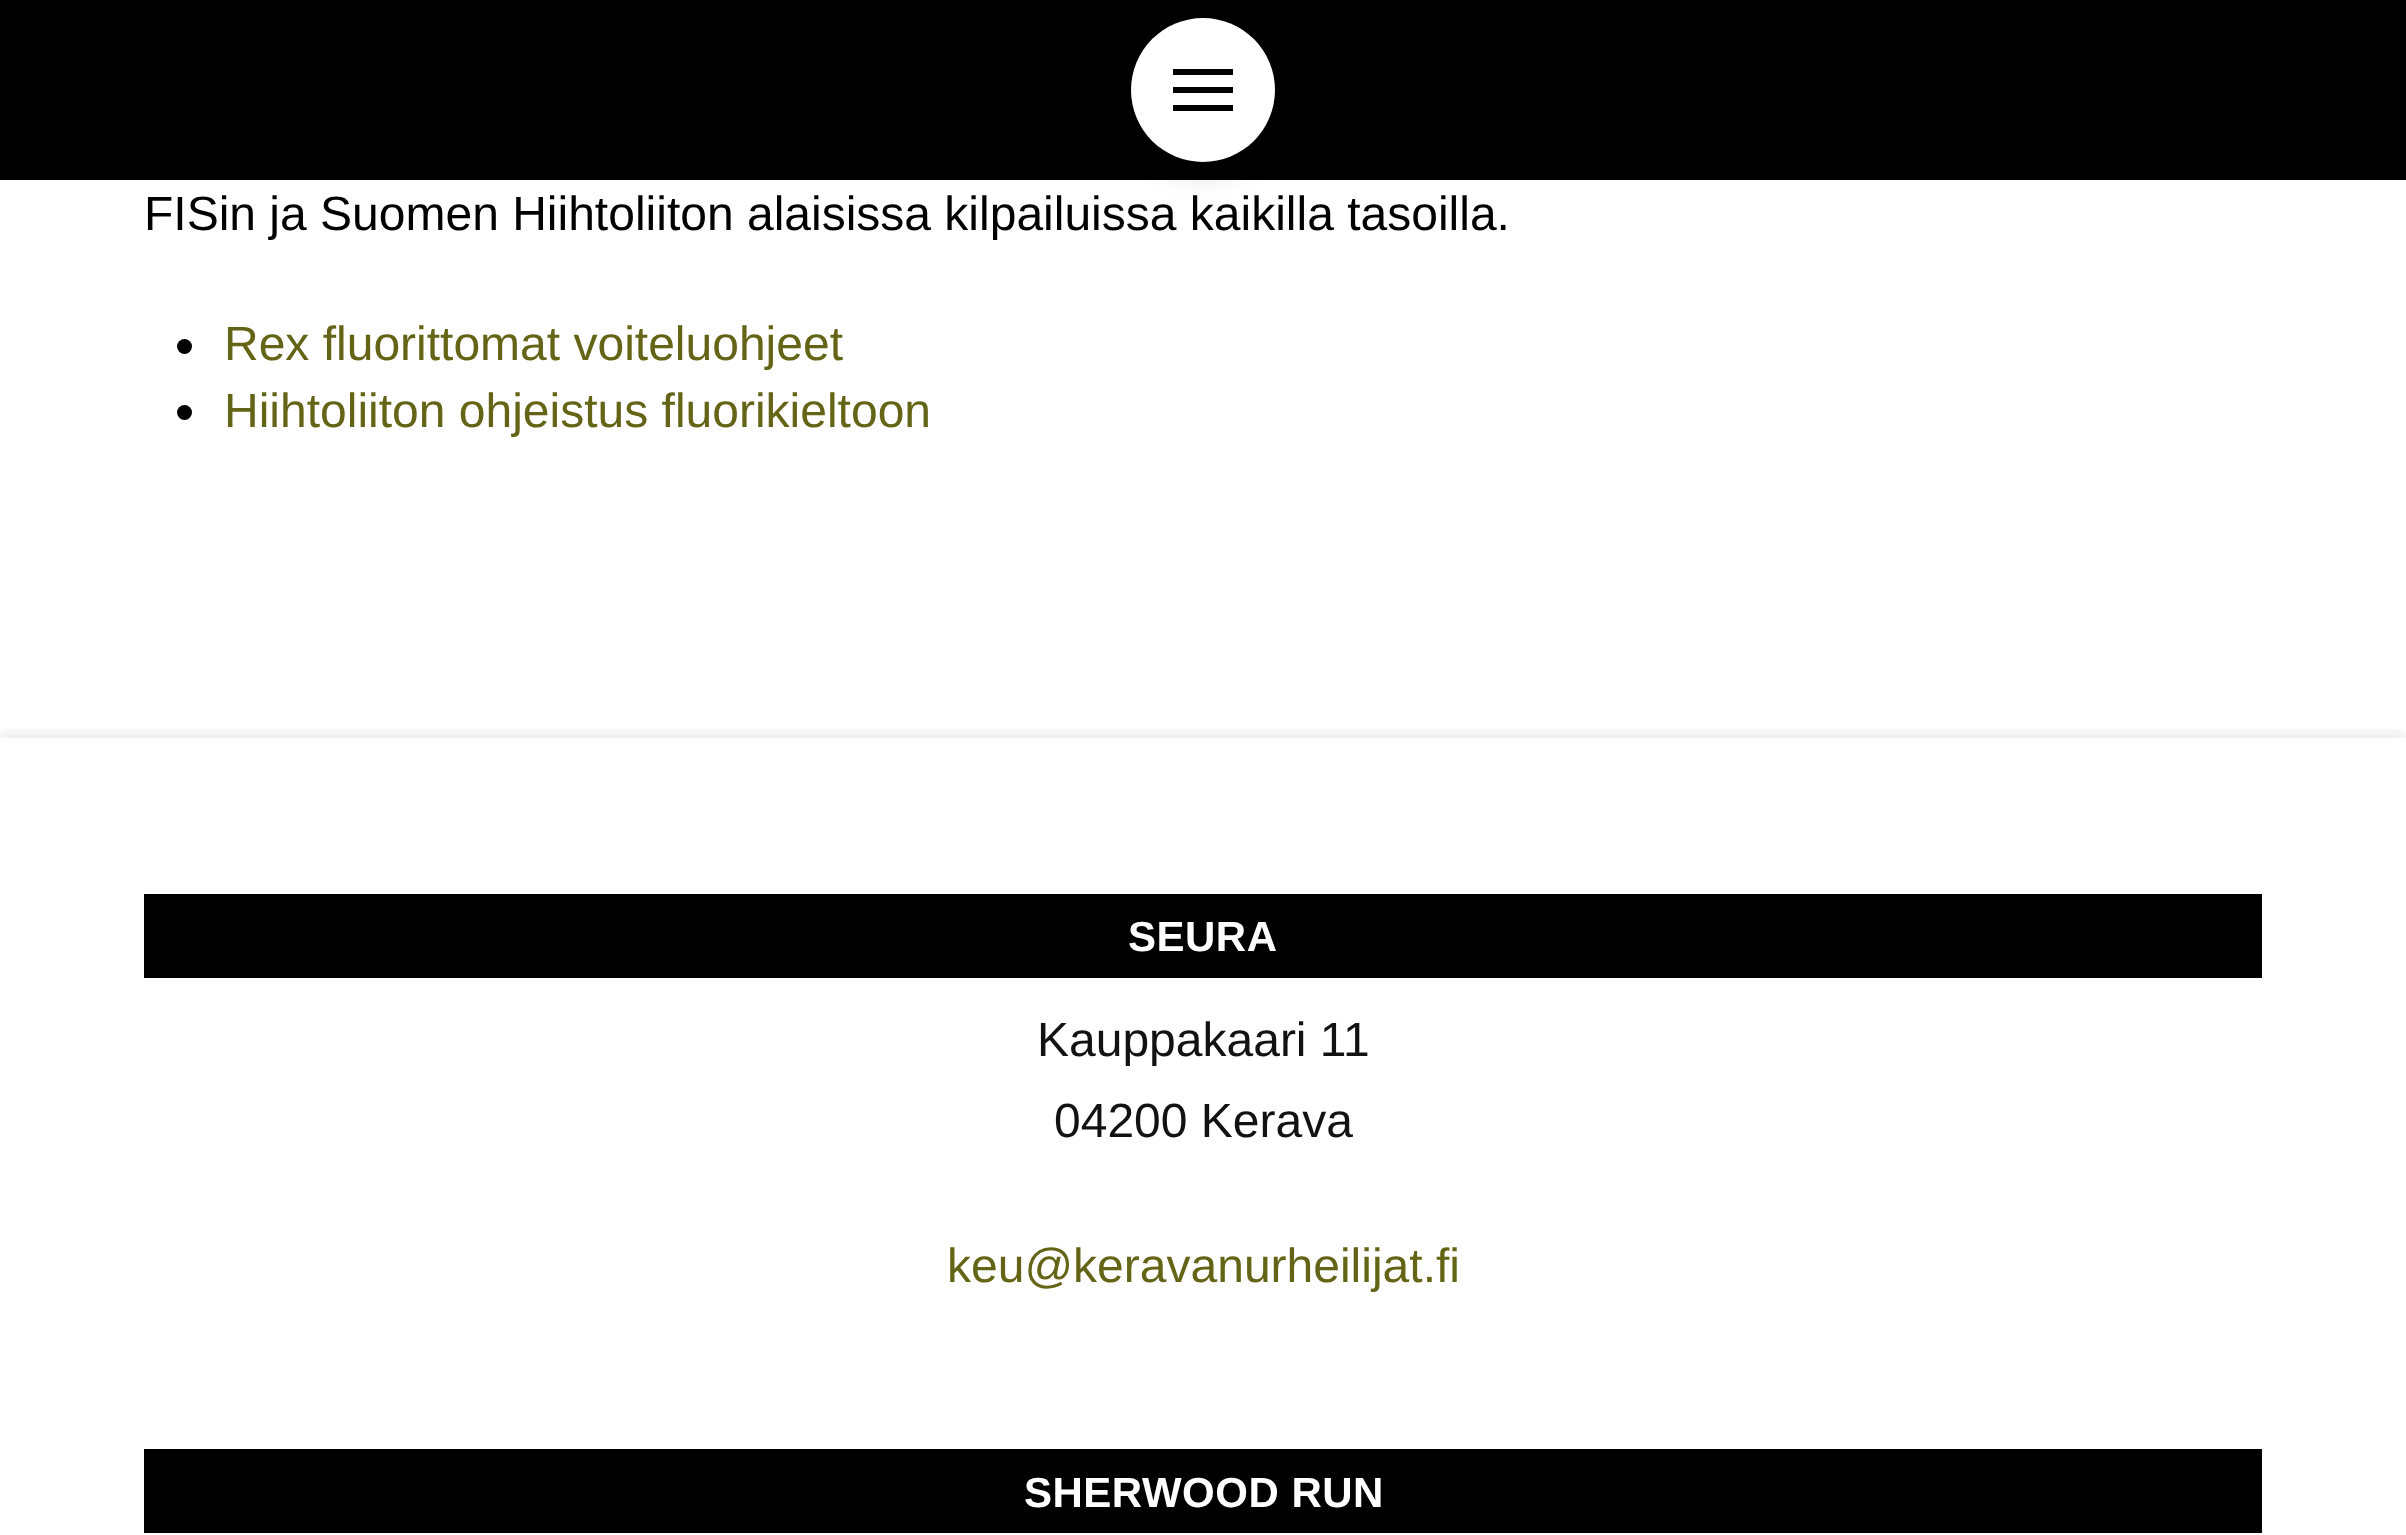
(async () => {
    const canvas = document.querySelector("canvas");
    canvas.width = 2406;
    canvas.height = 1535;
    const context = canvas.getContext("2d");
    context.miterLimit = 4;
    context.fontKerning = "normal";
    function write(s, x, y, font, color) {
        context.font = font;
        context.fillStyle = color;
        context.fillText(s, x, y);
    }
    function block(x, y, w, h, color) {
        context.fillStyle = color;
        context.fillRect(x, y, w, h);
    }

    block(0, 0, 2406, 1535, "rgb(255, 255, 255)");
    block(0, 0, 2406, 180, "rgb(0, 0, 0)");
    context.fillStyle = "rgba(0, 0, 0, 0.25)";
    context.filter = "blur(15.5px)";
    context.beginPath();
    context.roundRect(1131, 24, 144, 144, 72);
    context.fill();
    context.filter = "none";
    context.fillStyle = "rgb(255, 255, 255)";
    context.beginPath();
    context.arc(1203, 90, 72, 0, Math.PI * 2);
    context.fill();
    block(1173, 69, 60, 6, "rgb(0, 0, 0)");
    block(1173, 87, 60, 6, "rgb(0, 0, 0)");
    block(1173, 105, 60, 6, "rgb(0, 0, 0)");
    write("FISin ja Suomen Hiihtoliiton alaisissa kilpailuissa kaikilla tasoilla.", 144, 230, "48px Liberation Sans", "rgb(0, 0, 0)");
    context.beginPath();
    context.arc(184.5, 346.5, 7.5, 0, Math.PI * 2);
    context.fill();
    write("Rex fluorittomat voiteluohjeet", 224, 360, "48px Liberation Sans", "rgb(100, 100, 22)");
    context.fillStyle = "rgb(0, 0, 0)";
    context.beginPath();
    context.arc(184.5, 412.5, 7.5, 0, Math.PI * 2);
    context.fill();
    write("Hiihtoliiton ohjeistus fluorikieltoon", 224, 427, "48px Liberation Sans", "rgb(100, 100, 22)");
    context.save();
    context.beginPath();
    context.rect(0, 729, 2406, 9);
    context.clip();
    context.fillStyle = "rgba(0, 0, 0, 0.07)";
    context.filter = "blur(6px)";
    context.beginPath();
    context.rect(0, 732, 2406, 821);
    context.fill();
    context.filter = "none";
    context.restore();
    block(144, 894, 2118, 84, "rgb(0, 0, 0)");
    context.letterSpacing = "0.5px";
    write("SEURA", 1128, 951, "bold 42px Liberation Sans", "rgb(255, 255, 255)");
    context.letterSpacing = "0px";
    write("Kauppakaari 11", 1037, 1056, "48px Liberation Sans", "rgb(18, 18, 18)");
    write("04200 Kerava", 1054, 1137, "48px Liberation Sans", "rgb(18, 18, 18)");
    write("keu@keravanurheilijat.fi", 947, 1282, "48px Liberation Sans", "rgb(100, 100, 22)");
    block(144, 1449, 2118, 84, "rgb(0, 0, 0)");
    context.letterSpacing = "0.5px";
    write("SHERWOOD RUN", 1024, 1507, "bold 42px Liberation Sans", "rgb(255, 255, 255)");
})();
